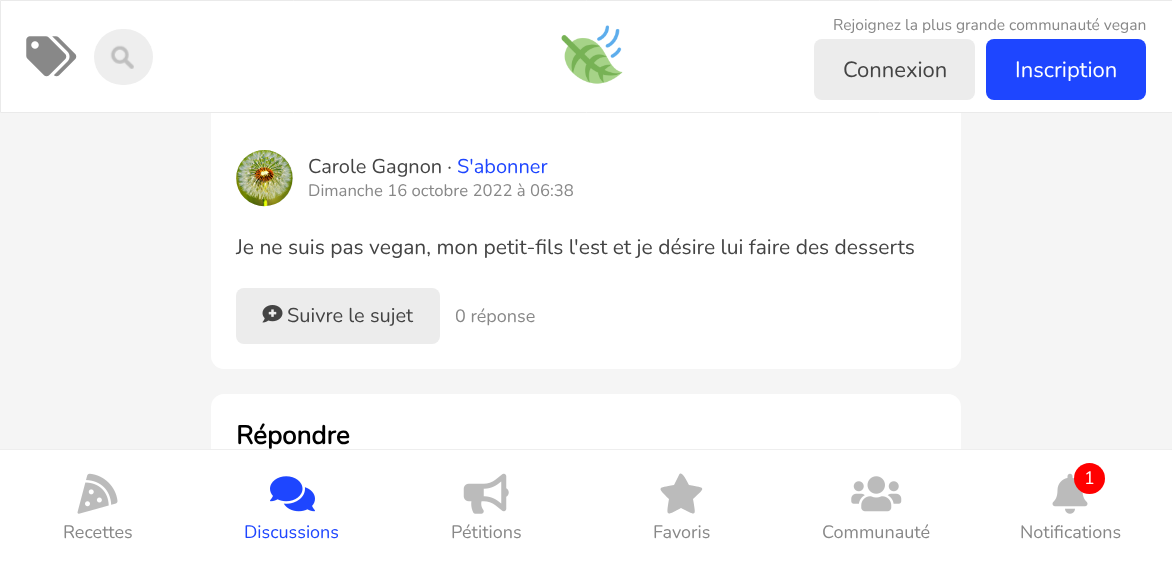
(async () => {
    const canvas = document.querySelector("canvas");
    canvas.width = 1172;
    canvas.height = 562;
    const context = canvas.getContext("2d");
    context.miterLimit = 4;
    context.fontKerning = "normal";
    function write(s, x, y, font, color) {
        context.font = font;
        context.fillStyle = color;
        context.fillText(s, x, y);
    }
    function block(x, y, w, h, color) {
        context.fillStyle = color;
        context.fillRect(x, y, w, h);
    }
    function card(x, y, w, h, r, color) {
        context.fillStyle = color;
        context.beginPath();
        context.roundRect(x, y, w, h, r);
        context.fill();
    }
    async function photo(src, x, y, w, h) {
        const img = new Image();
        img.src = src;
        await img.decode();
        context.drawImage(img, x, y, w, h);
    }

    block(0, 0, 1172, 562, "rgb(245, 245, 245)");
    context.fillStyle = "rgb(255, 255, 255)";
    context.beginPath();
    context.rect(0.5, 0.5, 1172, 112);
    context.fill();
    context.strokeStyle = "rgb(234, 234, 234)";
    context.stroke();
    await photo("media/1.png", 26, 36, 51, 41);
    card(94, 29, 59, 56, 28, "rgb(238, 238, 238)");
    await photo("media/2.png", 110, 45, 24, 24);
    await photo("media/3.png", 561, 25, 62, 59);
    write("Rejoignez la plus grande communauté vegan", 833, 30, "200 15.6px Nunito", "rgb(136, 136, 136)");
    card(814, 39, 161, 61, 8, "rgb(236, 236, 236)");
    write("Connexion", 843, 77, "200 22px Nunito", "rgb(68, 68, 68)");
    card(986, 39, 160, 61, 8, "rgb(30, 70, 255)");
    write("Inscription", 1015, 77, "200 22px Nunito", "rgb(255, 255, 255)");
    card(211, 394, 750, 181, 13, "rgb(255, 255, 255)");
    block(0, 450, 1172, 112, "rgb(255, 255, 255)");
    block(0, 449, 1172, 1, "rgb(238, 238, 238)");
    await photo("media/4.png", 77, 473, 41, 41);
    write("Recettes", 63, 538, "200 18px Nunito", "rgb(136, 136, 136)");
    await photo("media/5.png", 270, 476, 45, 36);
    write("Discussions", 244, 538, "200 18px Nunito", "rgb(30, 70, 255)");
    await photo("media/6.png", 463, 473, 46, 41);
    write("Pétitions", 451, 538, "200 18px Nunito", "rgb(136, 136, 136)");
    context.fillStyle = "rgb(187, 187, 187)";
    context.beginPath();
    context.moveTo(679, 475);
    context.lineTo(674, 485);
    context.bezierCurveTo(657, 488, 657, 487, 669, 499);
    context.bezierCurveTo(666, 517, 666, 516, 681, 508);
    context.bezierCurveTo(697, 516, 696, 517, 693, 499);
    context.bezierCurveTo(706, 487, 706, 488, 689, 485);
    context.bezierCurveTo(688, 484, 682, 469, 679, 475);
    context.closePath();
    context.fill();
    write("Favoris", 653, 538, "200 18px Nunito", "rgb(136, 136, 136)");
    await photo("media/7.png", 851, 476, 51, 36);
    write("Communauté", 822, 538, "200 18px Nunito", "rgb(136, 136, 136)");
    await photo("media/8.png", 1052, 473, 36, 41);
    context.fillStyle = "rgb(255, 0, 0)";
    context.beginPath();
    context.arc(1089.5, 478.5, 15.5, 0, Math.PI * 2);
    context.fill();
    write("1", 1084, 484, "200 18px Nunito", "rgb(255, 255, 255)");
    write("Notifications", 1020, 538, "200 18px Nunito", "rgb(136, 136, 136)");
    context.fillStyle = "rgb(255, 255, 255)";
    context.beginPath();
    context.roundRect(211, 113, 750, 256, [0, 0, 13, 13]);
    context.fill();
    card(236, 150, 57, 56, 28, "rgb(221, 221, 221)");
    await photo("media/10.png", 244, 196, 42, 10);
    await photo("media/9.png", 236, 150, 57, 57);
    write("Carole Gagnon ·", 308, 173, "200 20px Nunito", "rgb(68, 68, 68)");
    write("S'abonner", 457, 173, "200 20px Nunito", "rgb(30, 70, 255)");
    write("Dimanche 16 octobre 2022 à 06:38", 308, 196, "200 16.7px Nunito", "rgb(136, 136, 136)");
    write("Je ne suis pas vegan, mon petit-fils l'est et je désire lui faire des desserts", 236, 254, "200 21px Nunito", "rgb(68, 68, 68)");
    card(236, 288, 204, 56, 8, "rgb(236, 236, 236)");
    await photo("media/11.png", 262, 305, 21, 18);
    write("Suivre le sujet", 287, 322, "200 20px Nunito", "rgb(68, 68, 68)");
    write("0 réponse", 455, 322, "200 18px Nunito", "rgb(136, 136, 136)");
    write("Répondre", 236, 444, "bold 26px Nunito", "rgb(0, 0, 0)");
})();
